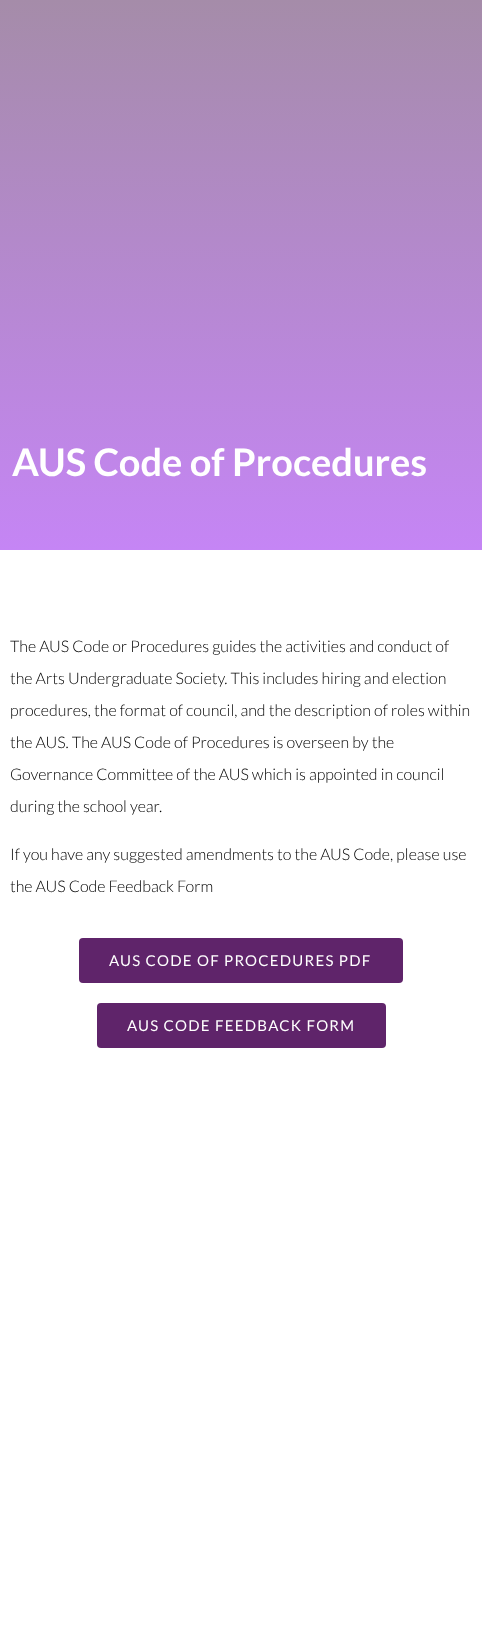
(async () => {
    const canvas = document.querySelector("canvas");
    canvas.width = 482;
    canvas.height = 1635;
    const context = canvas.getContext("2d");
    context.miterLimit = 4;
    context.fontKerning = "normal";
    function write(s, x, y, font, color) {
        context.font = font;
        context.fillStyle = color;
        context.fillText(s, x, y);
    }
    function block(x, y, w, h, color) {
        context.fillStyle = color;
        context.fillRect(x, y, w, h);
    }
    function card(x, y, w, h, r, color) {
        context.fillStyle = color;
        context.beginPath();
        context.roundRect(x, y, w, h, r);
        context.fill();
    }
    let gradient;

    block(0, 0, 482, 1635, "rgb(255, 255, 255)");
    gradient = context.createLinearGradient(241, 0, 241, 550);
    gradient.addColorStop(0, "rgb(165, 140, 169)");
    gradient.addColorStop(1, "rgb(197, 133, 245)");
    context.fillStyle = gradient;
    context.fillRect(0, 0, 482, 550);
    write("AUS Code of Procedures", 12, 476, "bold 38px Lato", "rgb(255, 255, 255)");
    write("The AUS Code or Procedures guides the activities and conduct of", 10, 652, "300 16px Lato", "rgb(0, 0, 0)");
    write("the Arts Undergraduate Society. This includes hiring and election", 10, 684, "300 16px Lato", "rgb(0, 0, 0)");
    write("procedures, the format of council, and the description of roles within", 10, 716, "300 16px Lato", "rgb(0, 0, 0)");
    write("the AUS. The AUS Code of Procedures is overseen by the", 10, 748, "300 16px Lato", "rgb(0, 0, 0)");
    write("Governance Committee of the AUS which is appointed in council", 10, 780, "300 16px Lato", "rgb(0, 0, 0)");
    write("during the school year.", 10, 812, "300 16px Lato", "rgb(0, 0, 0)");
    write("If you have any suggested amendments to the AUS Code, please use", 10, 860, "300 16px Lato", "rgb(0, 0, 0)");
    write("the AUS Code Feedback Form", 10, 892, "300 16px Lato", "rgb(0, 0, 0)");
    card(79, 938, 324, 45, 4, "rgb(95, 36, 106)");
    context.letterSpacing = "1.25px";
    write("AUS CODE OF PROCEDURES PDF", 109, 966, "15px Lato", "rgb(255, 255, 255)");
    card(97, 1003, 289, 45, 4, "rgb(95, 36, 106)");
    write("AUS CODE FEEDBACK FORM", 127, 1031, "15px Lato", "rgb(255, 255, 255)");
})();
